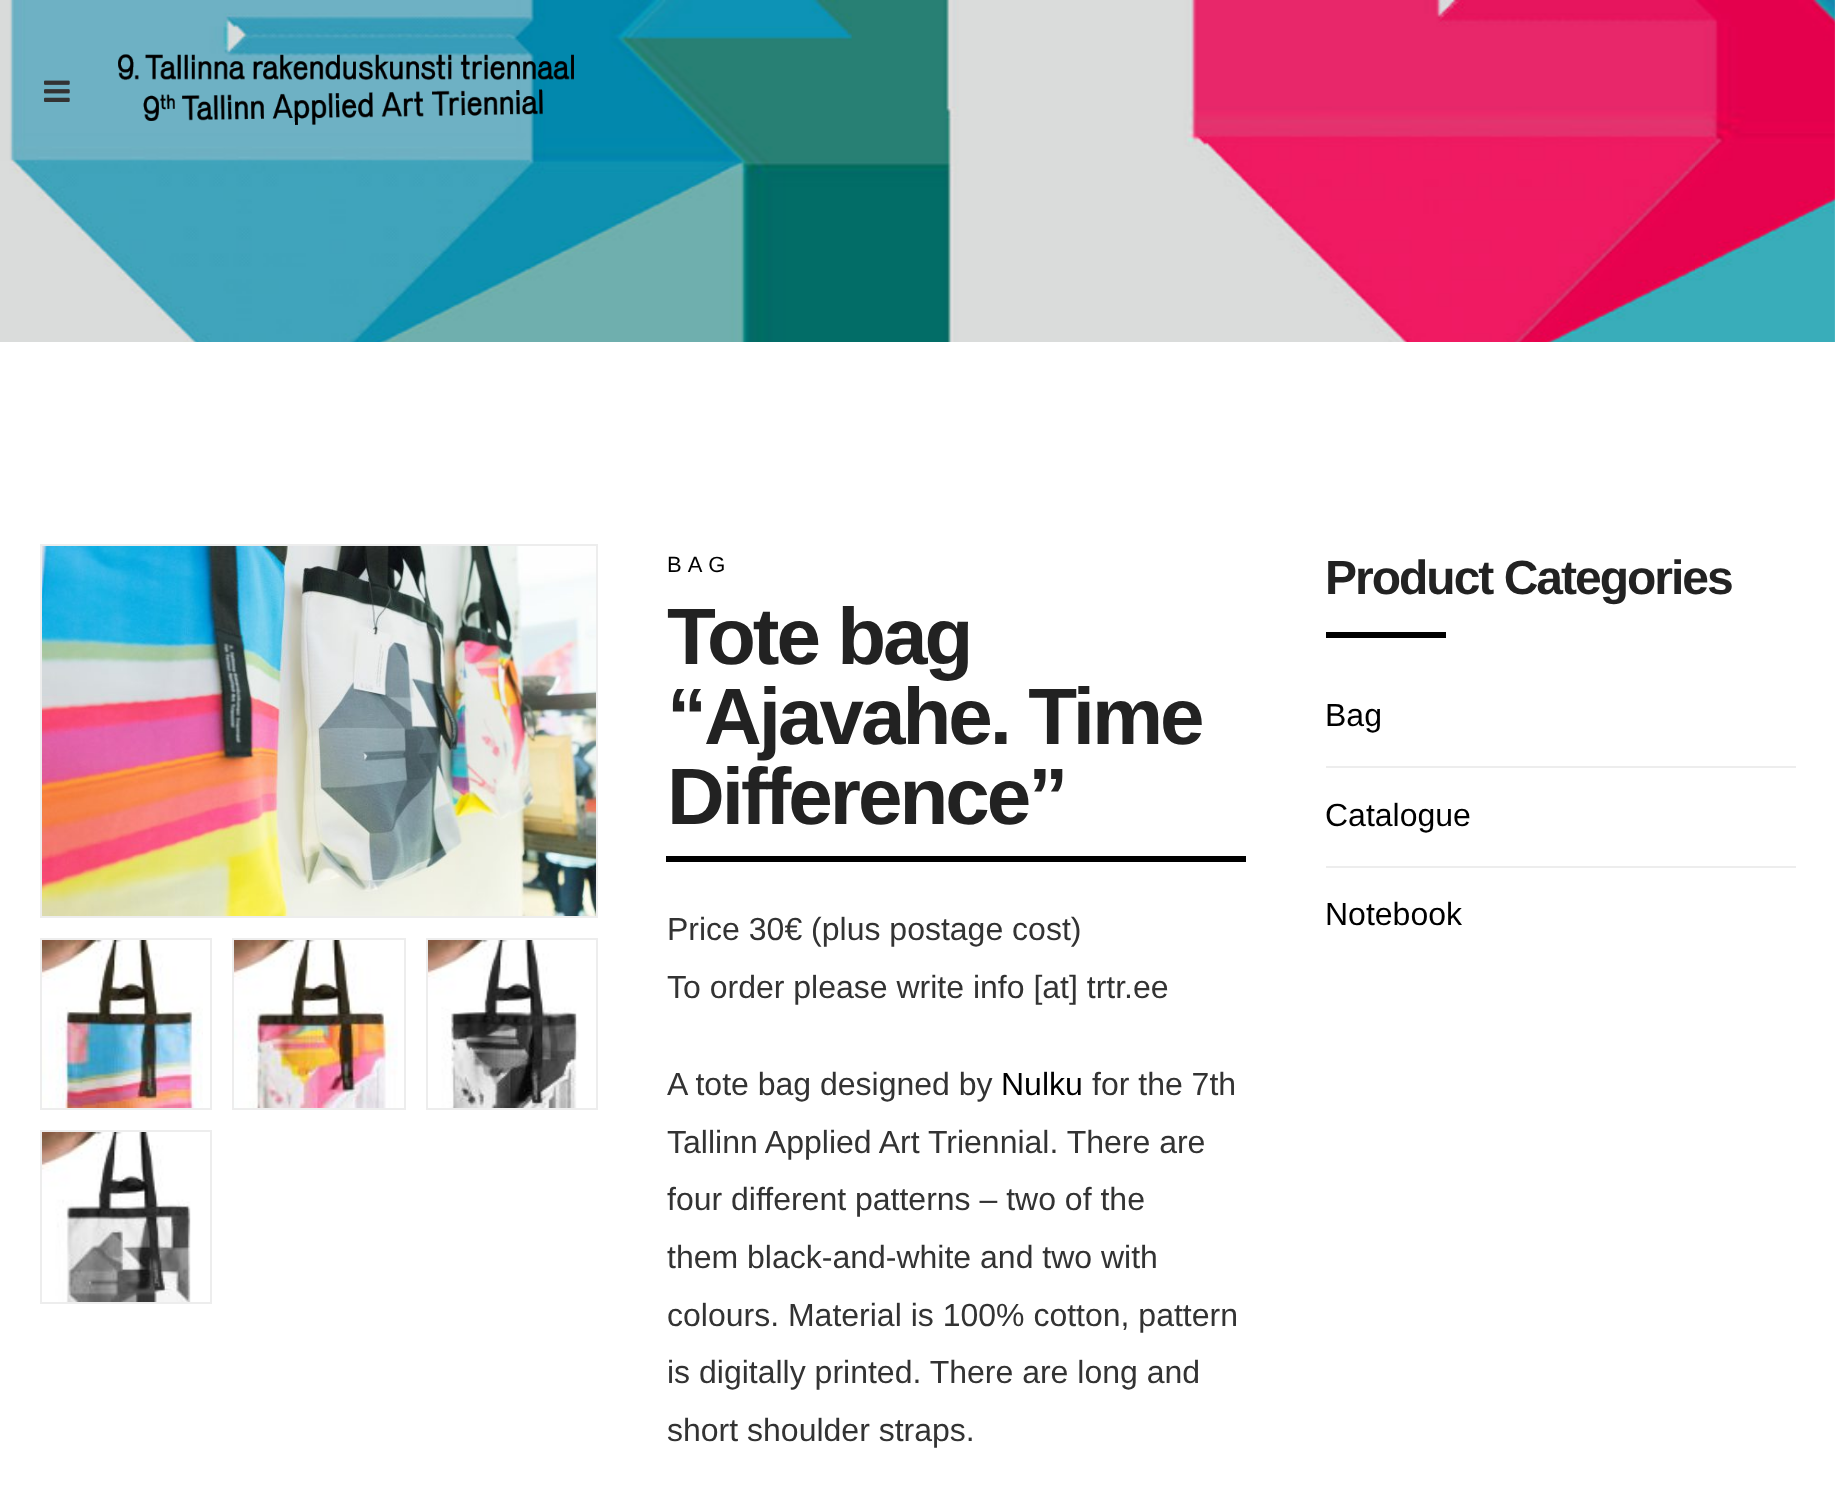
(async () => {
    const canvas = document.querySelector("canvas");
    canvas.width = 1835;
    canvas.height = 1499;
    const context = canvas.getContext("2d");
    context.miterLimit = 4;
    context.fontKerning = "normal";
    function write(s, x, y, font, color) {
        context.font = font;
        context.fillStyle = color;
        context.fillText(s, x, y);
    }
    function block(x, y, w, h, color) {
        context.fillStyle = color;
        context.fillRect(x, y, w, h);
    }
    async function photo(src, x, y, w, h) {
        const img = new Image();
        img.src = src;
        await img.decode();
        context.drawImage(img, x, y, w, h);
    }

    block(0, 0, 1835, 1499, "rgb(255, 255, 255)");
    await photo("media/3.png", 0, 0, 1835, 342);
    await photo("media/1.png", 44, 80, 26, 22);
    await photo("media/2.png", 118, 54, 456, 71);
    context.strokeStyle = "rgb(237, 237, 237)";
    context.lineWidth = 2;
    context.strokeRect(41, 545, 556, 372);
    await photo("media/4.png", 42, 546, 554, 370);
    context.strokeRect(41, 939, 170, 170);
    await photo("media/5.png", 42, 940, 161, 168);
    context.strokeRect(233, 939, 172, 170);
    await photo("media/6.png", 234, 940, 164, 168);
    context.strokeRect(427, 939, 170, 170);
    await photo("media/7.png", 428, 940, 151, 168);
    context.strokeRect(41, 1131, 170, 172);
    await photo("media/8.png", 42, 1132, 149, 170);
    context.letterSpacing = "6px";
    write("BAG", 667, 572, "22px Arimo", "rgb(0, 0, 0)");
    context.letterSpacing = "-3px";
    write("Tote bag", 667, 664, "bold 80px Arimo", "rgb(34, 34, 34)");
    write("“Ajavahe. Time", 667, 744, "bold 80px Arimo", "rgb(34, 34, 34)");
    write("Difference”", 667, 824, "bold 80px Arimo", "rgb(34, 34, 34)");
    block(666, 856, 580, 6, "rgb(0, 0, 0)");
    context.letterSpacing = "0px";
    write("Price 30€ (plus postage cost)", 667, 940, "32px Arimo", "rgb(51, 51, 51)");
    write("To order please write info [at] trtr.ee", 667, 998, "32px Arimo", "rgb(51, 51, 51)");
    write("A tote bag designed by", 667, 1095, "32px Arimo", "rgb(51, 51, 51)");
    write("Nulku", 1001, 1095, "32px Arimo", "rgb(0, 0, 0)");
    write("for the 7th", 1092, 1095, "32px Arimo", "rgb(51, 51, 51)");
    write("Tallinn Applied Art Triennial. There are", 667, 1153, "32px Arimo", "rgb(51, 51, 51)");
    write("four different patterns – two of the", 667, 1210, "32px Arimo", "rgb(51, 51, 51)");
    write("them black-and-white and two with", 667, 1268, "32px Arimo", "rgb(51, 51, 51)");
    write("colours. Material is 100% cotton, pattern", 667, 1326, "32px Arimo", "rgb(51, 51, 51)");
    write("is digitally printed. There are long and", 667, 1383, "32px Arimo", "rgb(51, 51, 51)");
    write("short shoulder straps.", 667, 1441, "32px Arimo", "rgb(51, 51, 51)");
    context.letterSpacing = "-2px";
    write("Product Categories", 1325, 594, "bold 48px Arimo", "rgb(34, 34, 34)");
    block(1326, 632, 120, 6, "rgb(0, 0, 0)");
    context.letterSpacing = "0px";
    write("Bag", 1325, 726, "32px Arimo", "rgb(0, 0, 0)");
    block(1326, 766, 470, 2, "rgb(237, 237, 237)");
    write("Catalogue", 1325, 826, "32px Arimo", "rgb(0, 0, 0)");
    block(1326, 866, 470, 2, "rgb(237, 237, 237)");
    write("Notebook", 1325, 925, "32px Arimo", "rgb(0, 0, 0)");
})();
